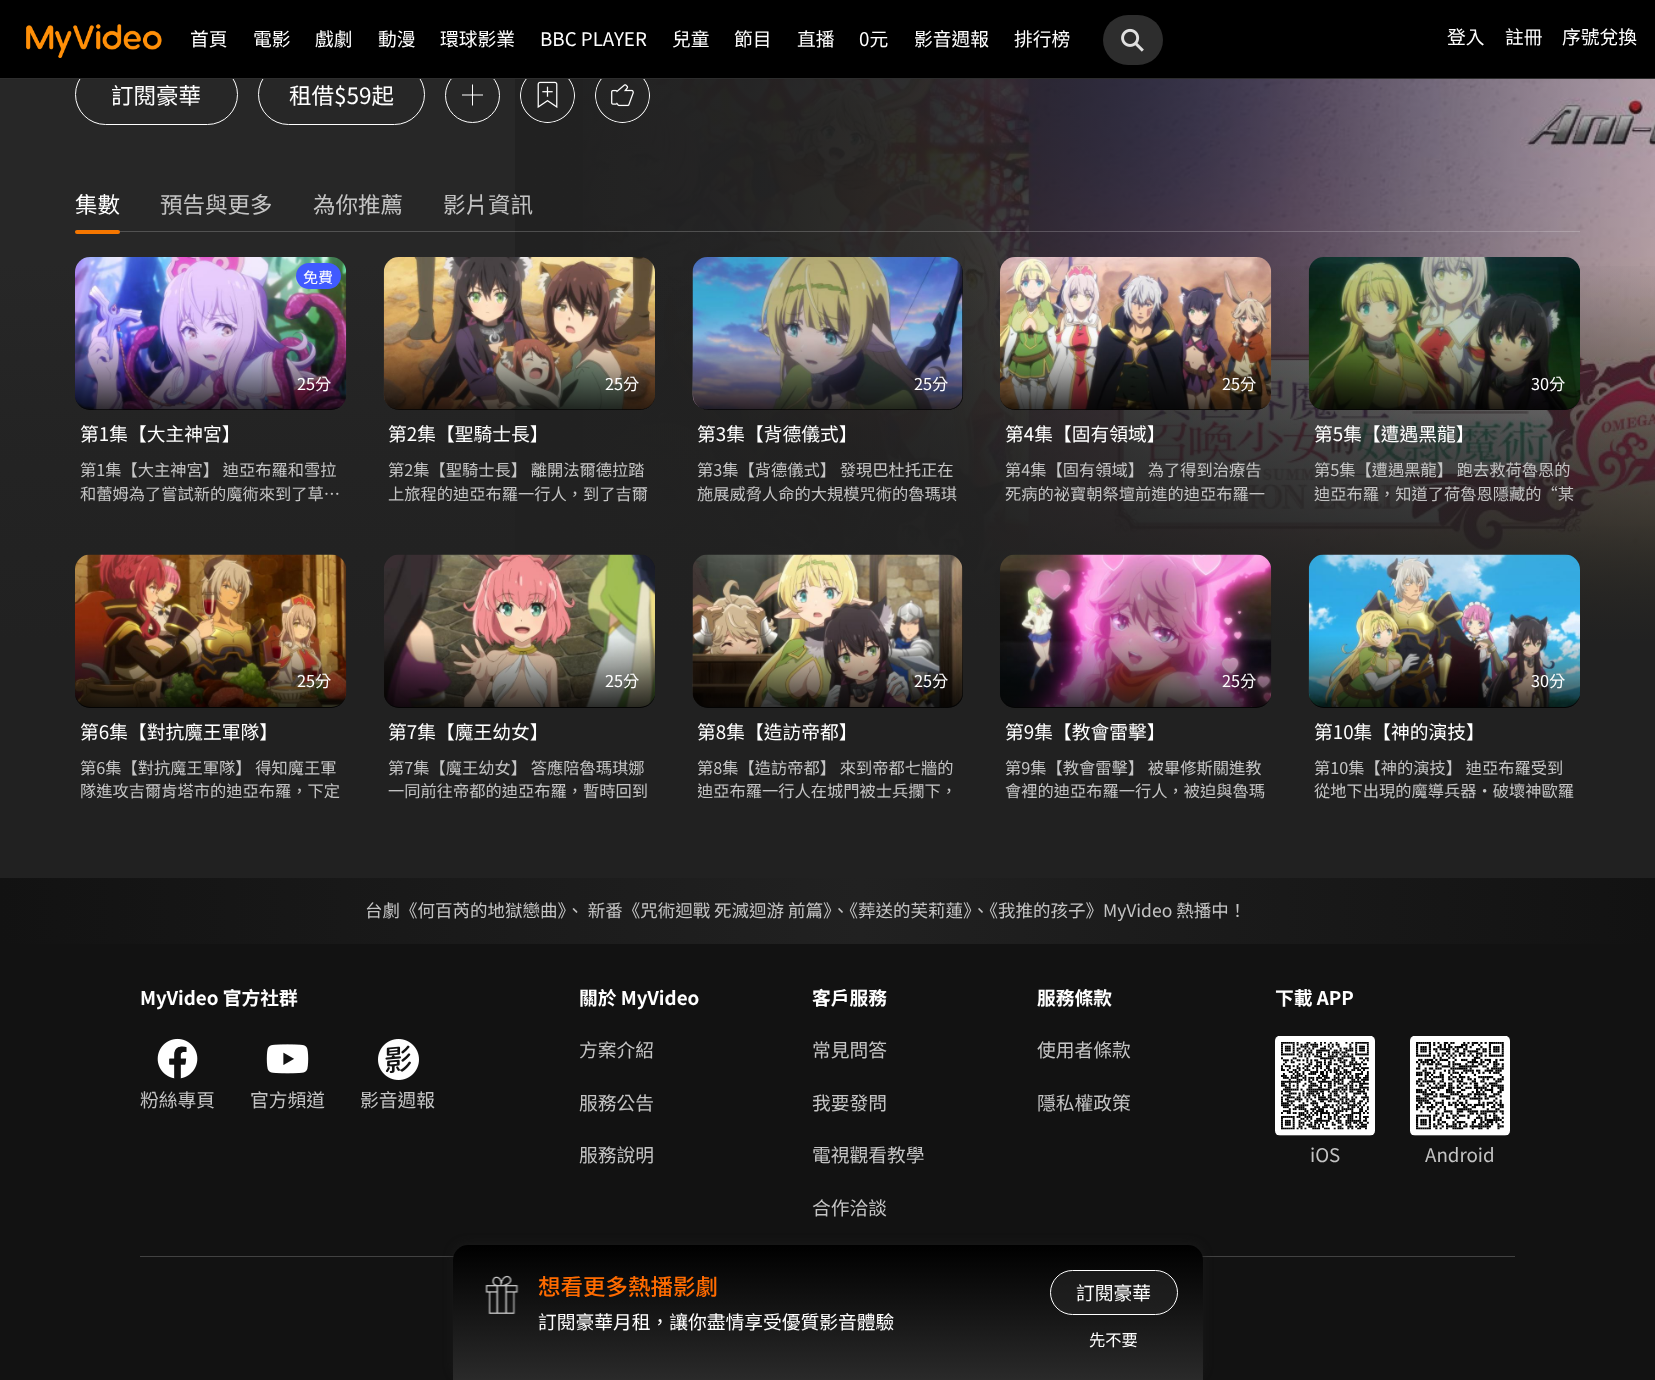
(async () => {
    const canvas = document.querySelector("canvas");
    canvas.width = 1655;
    canvas.height = 1380;
    const context = canvas.getContext("2d");
    context.miterLimit = 4;
    context.fontKerning = "normal";
    function write(s, x, y, font, color) {
        context.font = font;
        context.fillStyle = color;
        context.fillText(s, x, y);
    }
    function block(x, y, w, h, color) {
        context.fillStyle = color;
        context.fillRect(x, y, w, h);
    }
    function card(x, y, w, h, r, color) {
        context.fillStyle = color;
        context.beginPath();
        context.roundRect(x, y, w, h, r);
        context.fill();
    }
    async function photo(src, x, y, w, h) {
        const img = new Image();
        img.src = src;
        await img.decode();
        context.drawImage(img, x, y, w, h);
    }
    let gradient;

    block(0, 0, 1655, 1380, "rgb(39, 39, 39)");
    context.beginPath();
    context.roundRect(75.5, 64.5, 162, 60, 30);
    context.strokeStyle = "rgb(255, 255, 255)";
    context.stroke();
    context.beginPath();
    context.roundRect(258.5, 64.5, 166, 60, 30);
    context.stroke();
    context.fillStyle = "rgb(255, 255, 255)";
    context.beginPath();
    context.moveTo(462.5, 94.5);
    context.lineTo(462, 94.5);
    context.lineTo(462, 95.5);
    context.lineTo(472, 95.5);
    context.lineTo(472, 105.5);
    context.lineTo(473, 105.5);
    context.lineTo(473, 95.5);
    context.lineTo(483, 95.5);
    context.lineTo(483, 94.5);
    context.lineTo(473, 94.5);
    context.lineTo(473, 84.5);
    context.lineTo(472, 84.5);
    context.lineTo(472, 94.5);
    context.closePath();
    context.fill("evenodd");
    context.beginPath();
    context.arc(472.5, 95.5, 27, 0, Math.PI * 2);
    context.stroke();
    await photo("media/3.png", 583, 79, 1072, 562);
    gradient = context.createLinearGradient(1158, 798, 1157, -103);
    gradient.addColorStop(0.06, "rgba(33, 33, 33, 0.7)");
    gradient.addColorStop(0.43, "rgba(33, 33, 33, 0)");
    context.fillStyle = gradient;
    context.fillRect(583, 420, 1072, 221);
    gradient = context.createLinearGradient(515, 348, 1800, 347);
    gradient.addColorStop(0, "rgb(33, 33, 33)");
    gradient.addColorStop(0.18, "rgba(33, 33, 33, 0.98)");
    gradient.addColorStop(0.34, "rgba(33, 33, 33, 0.92)");
    gradient.addColorStop(1, "rgba(33, 33, 33, 0.2)");
    context.fillStyle = gradient;
    context.fillRect(515, 79, 1140, 562);
    context.fillStyle = "rgb(36, 36, 36)";
    context.beginPath();
    context.arc(547.5, 95.5, 27.5, 0, Math.PI * 2);
    context.fill();
    context.fillStyle = "rgba(38, 38, 38, 0.6)";
    context.beginPath();
    context.arc(622.5, 95.5, 27.5, 0, Math.PI * 2);
    context.fill();
    block(0, 0, 1655, 78, "rgb(0, 0, 0)");
    block(0, 78, 1655, 1, "rgb(45, 45, 45)");
    await photo("media/1.png", 26, 24, 136, 34);
    write("首頁", 190, 46, "18.75px Noto Sans TC", "rgb(255, 255, 255)");
    write("電影", 253, 46, "18.75px Noto Sans TC", "rgb(255, 255, 255)");
    write("戲劇", 315, 46, "18.75px Noto Sans TC", "rgb(255, 255, 255)");
    write("動漫", 378, 46, "18.75px Noto Sans TC", "rgb(255, 255, 255)");
    write("環球影業", 440, 46, "18.75px Noto Sans TC", "rgb(255, 255, 255)");
    write("BBC PLAYER", 540, 46, "18.75px Noto Sans TC", "rgb(255, 255, 255)");
    write("兒童", 672, 46, "18.75px Noto Sans TC", "rgb(255, 255, 255)");
    write("節目", 734, 46, "18.75px Noto Sans TC", "rgb(255, 255, 255)");
    write("直播", 797, 46, "18.75px Noto Sans TC", "rgb(255, 255, 255)");
    write("0元", 859, 46, "18.75px Noto Sans TC", "rgb(255, 255, 255)");
    write("影音週報", 914, 46, "18.75px Noto Sans TC", "rgb(255, 255, 255)");
    write("排行榜", 1014, 46, "18.75px Noto Sans TC", "rgb(255, 255, 255)");
    card(1103, 15, 60, 50, 25, "rgb(45, 45, 45)");
    await photo("media/2.png", 1121, 28, 23, 24);
    write("登入", 1447, 44, "18.75px Noto Sans TC", "rgb(255, 255, 255)");
    write("註冊", 1505, 44, "18.75px Noto Sans TC", "rgb(255, 255, 255)");
    write("序號兌換", 1562, 44, "18.75px Noto Sans TC", "rgb(255, 255, 255)");
    gradient = context.createLinearGradient(1158, 798, 1158, -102);
    gradient.addColorStop(0, "rgb(33, 33, 33)");
    gradient.addColorStop(0.31, "rgba(33, 33, 33, 0)");
    context.fillStyle = gradient;
    context.fillRect(899, 526, 756, 115);
    gradient = context.createLinearGradient(827, -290, 828, 878);
    gradient.addColorStop(0.47, "rgba(33, 33, 33, 0)");
    gradient.addColorStop(0.5, "rgba(33, 33, 33, 0.1)");
    gradient.addColorStop(0.62, "rgba(33, 33, 33, 0.6)");
    gradient.addColorStop(0.73, "rgba(33, 33, 33, 0.85)");
    gradient.addColorStop(0.8, "rgb(33, 33, 33)");
    context.fillStyle = gradient;
    context.fillRect(0, 266, 1655, 612);
    write("訂閱豪華", 111, 104, "22.5px Noto Sans TC", "rgb(255, 255, 255)");
    write("租借$59起", 289, 104, "22.5px Noto Sans TC", "rgb(255, 255, 255)");
    await photo("media/4.png", 520, 79, 55, 44);
    await photo("media/5.png", 595, 79, 55, 44);
    block(75, 231, 1505, 1, "rgba(255, 255, 255, 0.2)");
    write("集數", 75, 213, "22.5px Noto Sans TC", "rgb(255, 255, 255)");
    write("預告與更多", 160, 213, "22.5px Noto Sans TC", "rgb(196, 196, 196)");
    write("為你推薦", 313, 213, "22.5px Noto Sans TC", "rgb(196, 196, 196)");
    write("影片資訊", 443, 213, "22.5px Noto Sans TC", "rgb(196, 196, 196)");
    card(75, 230, 45, 4, 2, "rgb(245, 118, 0)");
    card(75, 258, 271, 152, 15, "rgb(18, 18, 18)");
    await photo("media/6.png", 75, 257, 272, 153);
    gradient = context.createLinearGradient(210, 412, 212, 256);
    gradient.addColorStop(0, "rgba(0, 0, 0, 0.8)");
    gradient.addColorStop(0.28, "rgba(0, 0, 0, 0.29)");
    gradient.addColorStop(0.47, "rgba(0, 0, 0, 0)");
    context.fillStyle = gradient;
    context.beginPath();
    context.roundRect(75, 258, 271, 152, 15);
    context.fill();
    card(296, 263, 45, 26, 13, "rgb(64, 90, 255)");
    write("免費", 303, 283, "15px Noto Sans TC", "rgb(255, 255, 255)");
    write("25分", 297, 390, "16.25px Noto Sans TC", "rgb(255, 255, 255)");
    write("第1集【大主神宮】", 80, 441, "18.75px Noto Sans TC", "rgb(255, 255, 255)");
    write("第1集【大主神宮】 迪亞布羅和雪拉", 80, 476, "16.25px Noto Sans TC", "rgb(196, 196, 196)");
    write("和蕾姆為了嘗試新的魔術來到了草…", 80, 500, "16.25px Noto Sans TC", "rgb(196, 196, 196)");
    card(384, 258, 271, 152, 15, "rgb(18, 18, 18)");
    await photo("media/7.png", 383, 257, 272, 153);
    gradient = context.createLinearGradient(518, 412, 520, 256);
    gradient.addColorStop(0, "rgba(0, 0, 0, 0.8)");
    gradient.addColorStop(0.28, "rgba(0, 0, 0, 0.29)");
    gradient.addColorStop(0.47, "rgba(0, 0, 0, 0)");
    context.fillStyle = gradient;
    context.beginPath();
    context.roundRect(384, 258, 271, 152, 15);
    context.fill();
    write("25分", 605, 390, "16.25px Noto Sans TC", "rgb(255, 255, 255)");
    write("第2集【聖騎士長】", 388, 441, "18.75px Noto Sans TC", "rgb(255, 255, 255)");
    write("第2集【聖騎士長】 離開法爾德拉踏", 388, 476, "16.25px Noto Sans TC", "rgb(196, 196, 196)");
    write("上旅程的迪亞布羅一行人，到了吉爾", 388, 500, "16.25px Noto Sans TC", "rgb(196, 196, 196)");
    card(693, 258, 270, 152, 15, "rgb(18, 18, 18)");
    await photo("media/8.png", 692, 257, 271, 153);
    gradient = context.createLinearGradient(826, 412, 829, 256);
    gradient.addColorStop(0, "rgba(0, 0, 0, 0.8)");
    gradient.addColorStop(0.28, "rgba(0, 0, 0, 0.29)");
    gradient.addColorStop(0.47, "rgba(0, 0, 0, 0)");
    context.fillStyle = gradient;
    context.beginPath();
    context.roundRect(693, 258, 270, 152, 15);
    context.fill();
    write("25分", 914, 390, "16.25px Noto Sans TC", "rgb(255, 255, 255)");
    write("第3集【背德儀式】", 697, 441, "18.75px Noto Sans TC", "rgb(255, 255, 255)");
    write("第3集【背德儀式】 發現巴杜托正在", 697, 476, "16.25px Noto Sans TC", "rgb(196, 196, 196)");
    write("施展威脅人命的大規模咒術的魯瑪琪", 697, 500, "16.25px Noto Sans TC", "rgb(196, 196, 196)");
    card(1000, 258, 271, 152, 15, "rgb(18, 18, 18)");
    await photo("media/9.png", 1000, 257, 272, 153);
    gradient = context.createLinearGradient(1135, 412, 1137, 256);
    gradient.addColorStop(0, "rgba(0, 0, 0, 0.8)");
    gradient.addColorStop(0.28, "rgba(0, 0, 0, 0.29)");
    gradient.addColorStop(0.47, "rgba(0, 0, 0, 0)");
    context.fillStyle = gradient;
    context.beginPath();
    context.roundRect(1000, 258, 271, 152, 15);
    context.fill();
    write("25分", 1222, 390, "16.25px Noto Sans TC", "rgb(255, 255, 255)");
    write("第4集【固有領域】", 1005, 441, "18.75px Noto Sans TC", "rgb(255, 255, 255)");
    write("第4集【固有領域】 為了得到治療告", 1005, 476, "16.25px Noto Sans TC", "rgb(196, 196, 196)");
    write("死病的祕寶朝祭壇前進的迪亞布羅一", 1005, 500, "16.25px Noto Sans TC", "rgb(196, 196, 196)");
    card(1309, 258, 271, 152, 15, "rgb(18, 18, 18)");
    await photo("media/10.png", 1308, 257, 272, 153);
    gradient = context.createLinearGradient(1443, 412, 1445, 256);
    gradient.addColorStop(0, "rgba(0, 0, 0, 0.8)");
    gradient.addColorStop(0.28, "rgba(0, 0, 0, 0.29)");
    gradient.addColorStop(0.47, "rgba(0, 0, 0, 0)");
    context.fillStyle = gradient;
    context.beginPath();
    context.roundRect(1309, 258, 271, 152, 15);
    context.fill();
    write("30分", 1531, 390, "16.25px Noto Sans TC", "rgb(255, 255, 255)");
    write("第5集【遭遇黑龍】", 1314, 441, "18.75px Noto Sans TC", "rgb(255, 255, 255)");
    write("第5集【遭遇黑龍】 跑去救荷魯恩的", 1314, 476, "16.25px Noto Sans TC", "rgb(196, 196, 196)");
    write("迪亞布羅，知道了荷魯恩隱藏的“某", 1314, 500, "16.25px Noto Sans TC", "rgb(196, 196, 196)");
    card(75, 555, 271, 153, 15, "rgb(18, 18, 18)");
    await photo("media/11.png", 75, 554, 272, 153);
    gradient = context.createLinearGradient(210, 709, 212, 553);
    gradient.addColorStop(0, "rgba(0, 0, 0, 0.8)");
    gradient.addColorStop(0.28, "rgba(0, 0, 0, 0.29)");
    gradient.addColorStop(0.47, "rgba(0, 0, 0, 0)");
    context.fillStyle = gradient;
    context.beginPath();
    context.roundRect(75, 555, 271, 153, 15);
    context.fill();
    write("25分", 297, 687, "16.25px Noto Sans TC", "rgb(255, 255, 255)");
    write("第6集【對抗魔王軍隊】", 80, 739, "18.75px Noto Sans TC", "rgb(255, 255, 255)");
    write("第6集【對抗魔王軍隊】 得知魔王軍", 80, 774, "16.25px Noto Sans TC", "rgb(196, 196, 196)");
    write("隊進攻吉爾肯塔市的迪亞布羅，下定", 80, 797, "16.25px Noto Sans TC", "rgb(196, 196, 196)");
    card(384, 555, 271, 153, 15, "rgb(18, 18, 18)");
    await photo("media/12.png", 384, 554, 271, 153);
    gradient = context.createLinearGradient(518, 709, 520, 553);
    gradient.addColorStop(0, "rgba(0, 0, 0, 0.8)");
    gradient.addColorStop(0.28, "rgba(0, 0, 0, 0.29)");
    gradient.addColorStop(0.47, "rgba(0, 0, 0, 0)");
    context.fillStyle = gradient;
    context.beginPath();
    context.roundRect(384, 555, 271, 153, 15);
    context.fill();
    write("25分", 605, 687, "16.25px Noto Sans TC", "rgb(255, 255, 255)");
    write("第7集【魔王幼女】", 388, 739, "18.75px Noto Sans TC", "rgb(255, 255, 255)");
    write("第7集【魔王幼女】 答應陪魯瑪琪娜", 388, 774, "16.25px Noto Sans TC", "rgb(196, 196, 196)");
    write("一同前往帝都的迪亞布羅，暫時回到", 388, 797, "16.25px Noto Sans TC", "rgb(196, 196, 196)");
    card(693, 555, 270, 153, 15, "rgb(18, 18, 18)");
    await photo("media/13.png", 692, 554, 271, 153);
    gradient = context.createLinearGradient(826, 709, 829, 553);
    gradient.addColorStop(0, "rgba(0, 0, 0, 0.8)");
    gradient.addColorStop(0.28, "rgba(0, 0, 0, 0.29)");
    gradient.addColorStop(0.47, "rgba(0, 0, 0, 0)");
    context.fillStyle = gradient;
    context.beginPath();
    context.roundRect(693, 555, 270, 153, 15);
    context.fill();
    write("25分", 914, 687, "16.25px Noto Sans TC", "rgb(255, 255, 255)");
    write("第8集【造訪帝都】", 697, 739, "18.75px Noto Sans TC", "rgb(255, 255, 255)");
    write("第8集【造訪帝都】 來到帝都七牆的", 697, 774, "16.25px Noto Sans TC", "rgb(196, 196, 196)");
    context.save();
    context.beginPath();
    context.rect(698, 755, 260, 48);
    context.clip();
    write("迪亞布羅一行人在城門被士兵攔下，", 697, 797, "16.25px Noto Sans TC", "rgb(196, 196, 196)");
    context.restore();
    card(1000, 555, 271, 153, 15, "rgb(18, 18, 18)");
    await photo("media/14.png", 1000, 554, 272, 153);
    gradient = context.createLinearGradient(1135, 709, 1137, 553);
    gradient.addColorStop(0, "rgba(0, 0, 0, 0.8)");
    gradient.addColorStop(0.28, "rgba(0, 0, 0, 0.29)");
    gradient.addColorStop(0.47, "rgba(0, 0, 0, 0)");
    context.fillStyle = gradient;
    context.beginPath();
    context.roundRect(1000, 555, 271, 153, 15);
    context.fill();
    write("25分", 1222, 687, "16.25px Noto Sans TC", "rgb(255, 255, 255)");
    write("第9集【教會雷擊】", 1005, 739, "18.75px Noto Sans TC", "rgb(255, 255, 255)");
    write("第9集【教會雷擊】 被畢修斯關進教", 1005, 774, "16.25px Noto Sans TC", "rgb(196, 196, 196)");
    write("會裡的迪亞布羅一行人，被迫與魯瑪", 1005, 797, "16.25px Noto Sans TC", "rgb(196, 196, 196)");
    card(1309, 555, 271, 153, 15, "rgb(18, 18, 18)");
    await photo("media/15.png", 1308, 554, 272, 153);
    gradient = context.createLinearGradient(1443, 709, 1445, 553);
    gradient.addColorStop(0, "rgba(0, 0, 0, 0.8)");
    gradient.addColorStop(0.28, "rgba(0, 0, 0, 0.29)");
    gradient.addColorStop(0.47, "rgba(0, 0, 0, 0)");
    context.fillStyle = gradient;
    context.beginPath();
    context.roundRect(1309, 555, 271, 153, 15);
    context.fill();
    write("30分", 1531, 687, "16.25px Noto Sans TC", "rgb(255, 255, 255)");
    write("第10集【神的演技】", 1314, 739, "18.75px Noto Sans TC", "rgb(255, 255, 255)");
    write("第10集【神的演技】 迪亞布羅受到", 1314, 774, "16.25px Noto Sans TC", "rgb(196, 196, 196)");
    write("從地下出現的魔導兵器・破壞神歐羅", 1314, 797, "16.25px Noto Sans TC", "rgb(196, 196, 196)");
    block(0, 944, 1655, 436, "rgb(18, 18, 18)");
    gradient = context.createLinearGradient(0, 911, 1655, 911);
    gradient.addColorStop(0, "rgb(18, 18, 18)");
    gradient.addColorStop(0.52, "rgb(33, 33, 33)");
    gradient.addColorStop(1, "rgb(18, 18, 18)");
    context.fillStyle = gradient;
    context.fillRect(0, 878, 1655, 66);
    write("台劇《何百芮的地獄戀曲》、 新番《咒術迴戰 死滅迴游 前篇》、《葬送的芙莉蓮》、《我推的孩子》MyVideo 熱播中！", 365, 917, "17.5px Noto Sans TC", "rgb(196, 196, 196)");
    write("MyVideo 官方社群", 140, 1005, "bold 18.75px Noto Sans TC", "rgb(255, 255, 255)");
    await photo("media/16.png", 157, 1038, 41, 41);
    write("粉絲專頁", 140, 1107, "18.75px Noto Sans TC", "rgb(196, 196, 196)");
    await photo("media/17.png", 266, 1044, 43, 30);
    write("官方頻道", 250, 1107, "18.75px Noto Sans TC", "rgb(196, 196, 196)");
    await photo("media/18.png", 378, 1039, 41, 41);
    write("影音週報", 360, 1107, "18.75px Noto Sans TC", "rgb(196, 196, 196)");
    write("關於 MyVideo", 579, 1005, "bold 18.75px Noto Sans TC", "rgb(255, 255, 255)");
    write("方案介紹", 579, 1057, "18.75px Noto Sans TC", "rgb(196, 196, 196)");
    write("服務公告", 579, 1110, "18.75px Noto Sans TC", "rgb(196, 196, 196)");
    write("服務說明", 579, 1162, "18.75px Noto Sans TC", "rgb(196, 196, 196)");
    write("客戶服務", 812, 1005, "bold 18.75px Noto Sans TC", "rgb(255, 255, 255)");
    write("常見問答", 812, 1057, "18.75px Noto Sans TC", "rgb(196, 196, 196)");
    write("我要發問", 812, 1110, "18.75px Noto Sans TC", "rgb(196, 196, 196)");
    write("電視觀看教學", 812, 1162, "18.75px Noto Sans TC", "rgb(196, 196, 196)");
    write("合作洽談", 812, 1215, "18.75px Noto Sans TC", "rgb(196, 196, 196)");
    write("服務條款", 1037, 1005, "bold 18.75px Noto Sans TC", "rgb(255, 255, 255)");
    write("使用者條款", 1037, 1057, "18.75px Noto Sans TC", "rgb(196, 196, 196)");
    write("隱私權政策", 1037, 1110, "18.75px Noto Sans TC", "rgb(196, 196, 196)");
    write("下載 APP", 1275, 1005, "bold 18.75px Noto Sans TC", "rgb(255, 255, 255)");
    await photo("media/19.png", 1275, 1036, 100, 100);
    write("iOS", 1310, 1162, "18.75px Noto Sans TC", "rgb(196, 196, 196)");
    await photo("media/20.png", 1410, 1036, 100, 100);
    write("Android", 1425, 1162, "18.75px Noto Sans TC", "rgb(196, 196, 196)");
    block(140, 1256, 1375, 1, "rgb(66, 66, 66)");
    context.fillStyle = "rgba(27, 27, 27, 0.8)";
    context.filter = "blur(5px)";
    context.beginPath();
    context.roundRect(453, 1244, 750, 135, 15);
    context.fill();
    context.filter = "none";
    gradient = context.createLinearGradient(828, 1245, 828, 1380);
    gradient.addColorStop(0, "rgb(0, 0, 0)");
    gradient.addColorStop(1, "rgb(42, 42, 42)");
    context.fillStyle = gradient;
    context.beginPath();
    context.roundRect(453, 1245, 750, 135, [15, 15, 0, 0]);
    context.fill();
    await photo("media/21.png", 485, 1275, 34, 39);
    write("想看更多熱播影劇", 538, 1295, "500 22.5px Noto Sans TC", "rgb(255, 107, 0)");
    write("訂閱豪華月租，讓你盡情享受優質影音體驗", 538, 1329, "18.75px Noto Sans TC", "rgb(255, 255, 255)");
    context.fillStyle = "rgba(38, 38, 38, 0.6)";
    context.beginPath();
    context.roundRect(1050.5, 1270.5, 127, 44, 22);
    context.fill();
    context.stroke();
    write("訂閱豪華", 1076, 1300, "18.75px Noto Sans TC", "rgb(255, 255, 255)");
    write("先不要", 1089, 1346, "16.25px Noto Sans TC", "rgb(255, 255, 255)");
})();
